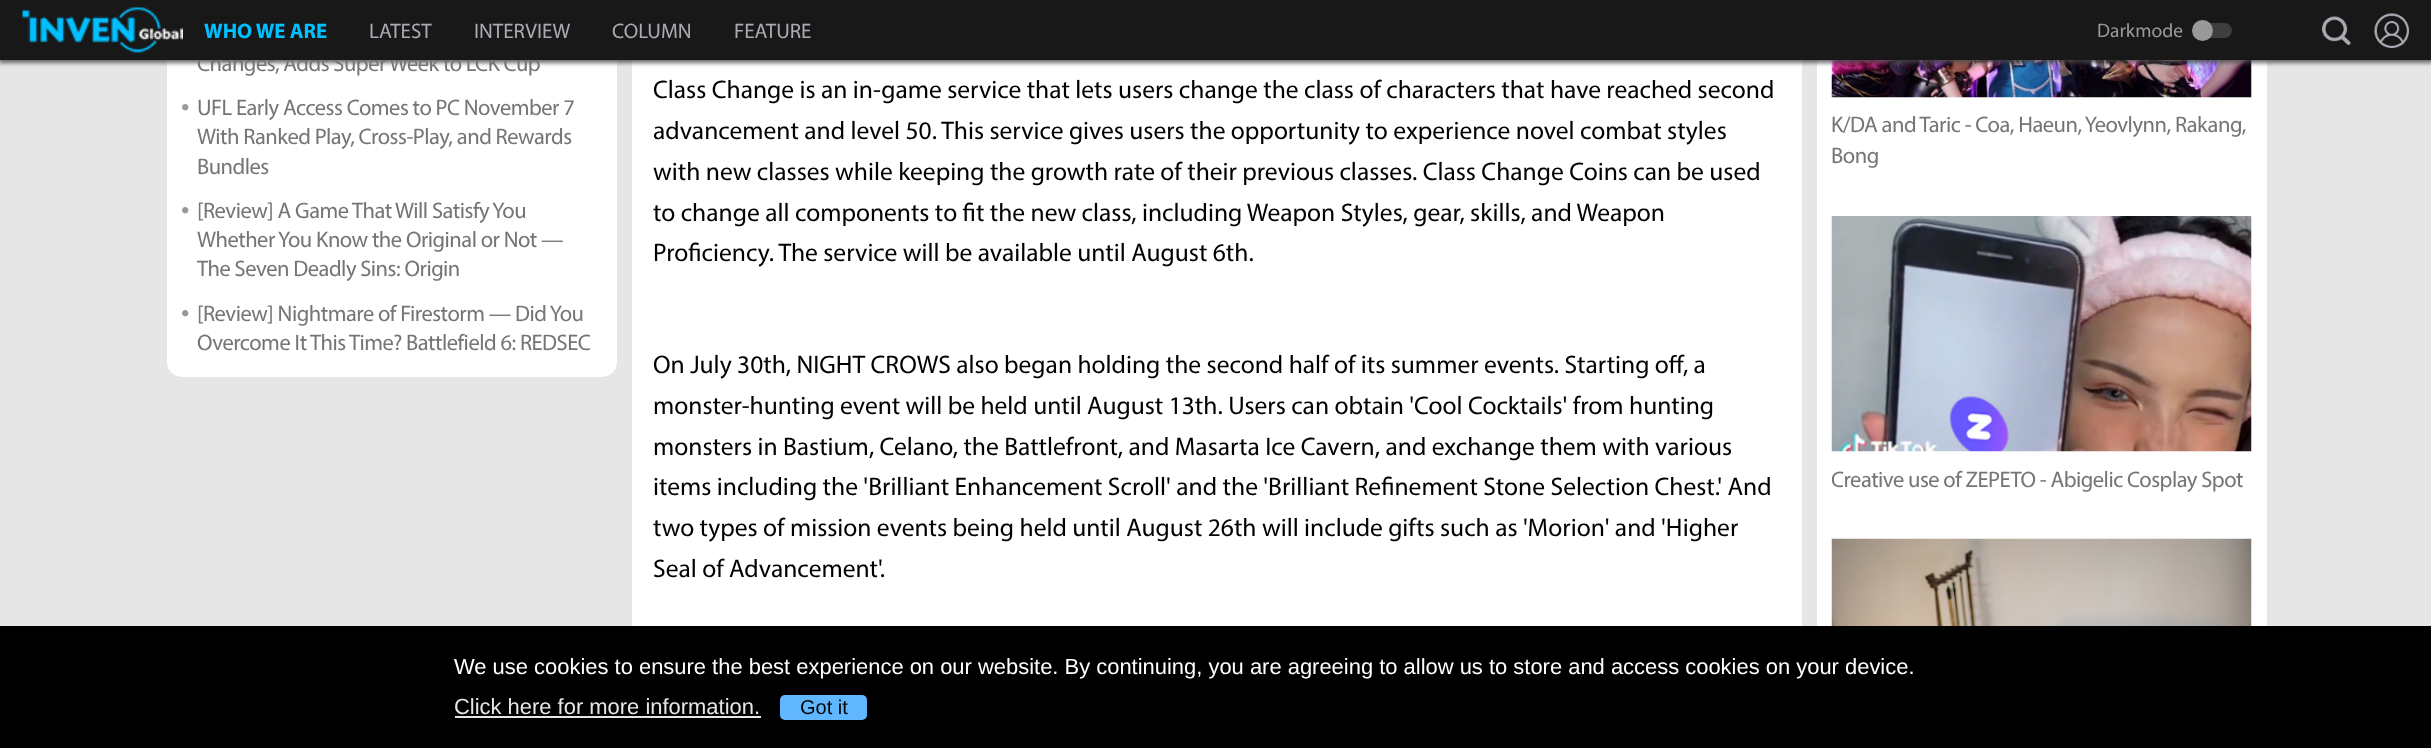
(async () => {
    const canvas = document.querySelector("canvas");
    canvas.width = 2431;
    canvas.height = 748;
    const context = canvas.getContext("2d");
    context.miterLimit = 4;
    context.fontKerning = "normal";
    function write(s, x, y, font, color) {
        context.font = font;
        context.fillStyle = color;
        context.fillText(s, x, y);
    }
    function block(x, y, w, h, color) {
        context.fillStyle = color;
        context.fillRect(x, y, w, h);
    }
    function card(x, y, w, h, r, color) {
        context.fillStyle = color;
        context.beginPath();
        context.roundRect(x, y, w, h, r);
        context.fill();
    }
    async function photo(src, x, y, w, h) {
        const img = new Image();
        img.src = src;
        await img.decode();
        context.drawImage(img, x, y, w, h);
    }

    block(0, 0, 2431, 748, "rgb(230, 230, 230)");
    card(167, -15, 450, 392, 15, "rgb(255, 255, 255)");
    block(632, 60, 1170, 566, "rgb(255, 255, 255)");
    block(1817, 60, 450, 566, "rgb(255, 255, 255)");
    await photo("media/4.png", 1831, 60, 421, 38);
    context.fillStyle = "rgba(70, 70, 70, 0.8)";
    context.filter = "blur(2px)";
    context.beginPath();
    context.rect(-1, 0, 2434, 63);
    context.fill();
    context.filter = "none";
    context.letterSpacing = "-0.5px";
    write("Changes, Adds Super Week to LCK Cup", 197, 71, "22.5px Myriad", "rgb(117, 117, 117)");
    block(0, 0, 2431, 60, "rgb(24, 24, 24)");
    await photo("media/1.png", 22, 7, 161, 46);
    context.letterSpacing = "0px";
    write("WHO WE ARE", 204, 38, "bold 21px Myriad", "rgb(0, 192, 255)");
    write("LATEST", 369, 38, "21px Myriad", "rgb(168, 171, 178)");
    write("INTERVIEW", 474, 38, "21px Myriad", "rgb(168, 171, 178)");
    write("COLUMN", 612, 38, "21px Myriad", "rgb(168, 171, 178)");
    write("FEATURE", 734, 38, "21px Myriad", "rgb(168, 171, 178)");
    write("Darkmode", 2097, 37, "19.5px Myriad", "rgb(153, 153, 153)");
    card(2202, 23, 30, 15, 7.5, "rgb(62, 62, 62)");
    context.fillStyle = "rgb(153, 153, 153)";
    context.beginPath();
    context.arc(2202.5, 30.5, 10.5, 0, Math.PI * 2);
    context.fill();
    await photo("media/2.png", 2374, 13, 35, 35);
    await photo("media/3.png", 2322, 16, 29, 29);
    context.letterSpacing = "-0.5px";
    write("•", 181, 115, "30px Myriad", "rgb(153, 153, 153)");
    write("UFL Early Access Comes to PC November 7", 197, 115, "22.5px Myriad", "rgb(117, 117, 117)");
    write("With Ranked Play, Cross-Play, and Rewards", 197, 144, "22.5px Myriad", "rgb(117, 117, 117)");
    write("Bundles", 197, 174, "22.5px Myriad", "rgb(117, 117, 117)");
    write("•", 181, 218, "30px Myriad", "rgb(153, 153, 153)");
    write("[Review] A Game That Will Satisfy You", 197, 218, "22.5px Myriad", "rgb(117, 117, 117)");
    write("Whether You Know the Original or Not —", 197, 247, "22.5px Myriad", "rgb(117, 117, 117)");
    write("The Seven Deadly Sins: Origin", 197, 276, "22.5px Myriad", "rgb(117, 117, 117)");
    write("•", 181, 321, "30px Myriad", "rgb(153, 153, 153)");
    write("[Review] Nightmare of Firestorm — Did You", 197, 321, "22.5px Myriad", "rgb(117, 117, 117)");
    write("Overcome It This Time? Battlefield 6: REDSEC", 197, 350, "22.5px Myriad", "rgb(117, 117, 117)");
    context.letterSpacing = "0px";
    write("Class Change is an in-game service that lets users change the class of characters that have reached second", 653, 98, "25.5px Myriad", "rgb(0, 0, 0)");
    write("advancement and level 50. This service gives users the opportunity to experience novel combat styles", 653, 139, "25.5px Myriad", "rgb(0, 0, 0)");
    write("with new classes while keeping the growth rate of their previous classes. Class Change Coins can be used", 653, 180, "25.5px Myriad", "rgb(0, 0, 0)");
    write("to change all components to fit the new class, including Weapon Styles, gear, skills, and Weapon", 653, 221, "25.5px Myriad", "rgb(0, 0, 0)");
    write("Proficiency. The service will be available until August 6th.", 653, 261, "25.5px Myriad", "rgb(0, 0, 0)");
    write("On July 30th, NIGHT CROWS also began holding the second half of its summer events. Starting off, a", 653, 373, "25.5px Myriad", "rgb(0, 0, 0)");
    write("monster-hunting event will be held until August 13th. Users can obtain 'Cool Cocktails' from hunting", 653, 414, "25.5px Myriad", "rgb(0, 0, 0)");
    write("monsters in Bastium, Celano, the Battlefront, and Masarta Ice Cavern, and exchange them with various", 653, 455, "25.5px Myriad", "rgb(0, 0, 0)");
    write("items including the 'Brilliant Enhancement Scroll' and the 'Brilliant Refinement Stone Selection Chest.' And", 653, 495, "25.5px Myriad", "rgb(0, 0, 0)");
    write("two types of mission events being held until August 26th will include gifts such as 'Morion' and 'Higher", 653, 536, "25.5px Myriad", "rgb(0, 0, 0)");
    write("Seal of Advancement'.", 653, 577, "25.5px Myriad", "rgb(0, 0, 0)");
    context.letterSpacing = "-0.5px";
    write("K/DA and Taric - Coa, Haeun, Yeovlynn, Rakang,", 1831, 132, "22.5px Myriad", "rgb(117, 117, 117)");
    write("Bong", 1831, 163, "22.5px Myriad", "rgb(117, 117, 117)");
    await photo("media/5.png", 1831, 216, 421, 236);
    context.save();
    context.beginPath();
    context.rect(1832, 462, 420, 32);
    context.clip();
    write("Creative use of ZEPETO - Abigelic Cosplay Spot", 1831, 487, "22.5px Myriad", "rgb(117, 117, 117)");
    context.restore();
    await photo("media/6.png", 1831, 538, 421, 88);
    block(0, 626, 2431, 122, "rgb(0, 0, 0)");
    context.letterSpacing = "0px";
    write("We use cookies to ensure the best experience on our website. By continuing, you are agreeing to allow us to store and access cookies on your device.", 454, 674, "21.95px Liberation Sans", "rgb(255, 255, 255)");
    write("Click here for more information.", 454, 714, "21.95px Liberation Sans", "rgb(230, 230, 230)");
    block(455, 716, 306, 2, "rgb(230, 230, 230)");
    card(780, 695, 87, 25, 5, "rgb(97, 183, 255)");
    write("Got it", 800, 714, "20px Liberation Sans", "rgb(0, 0, 0)");
})();
